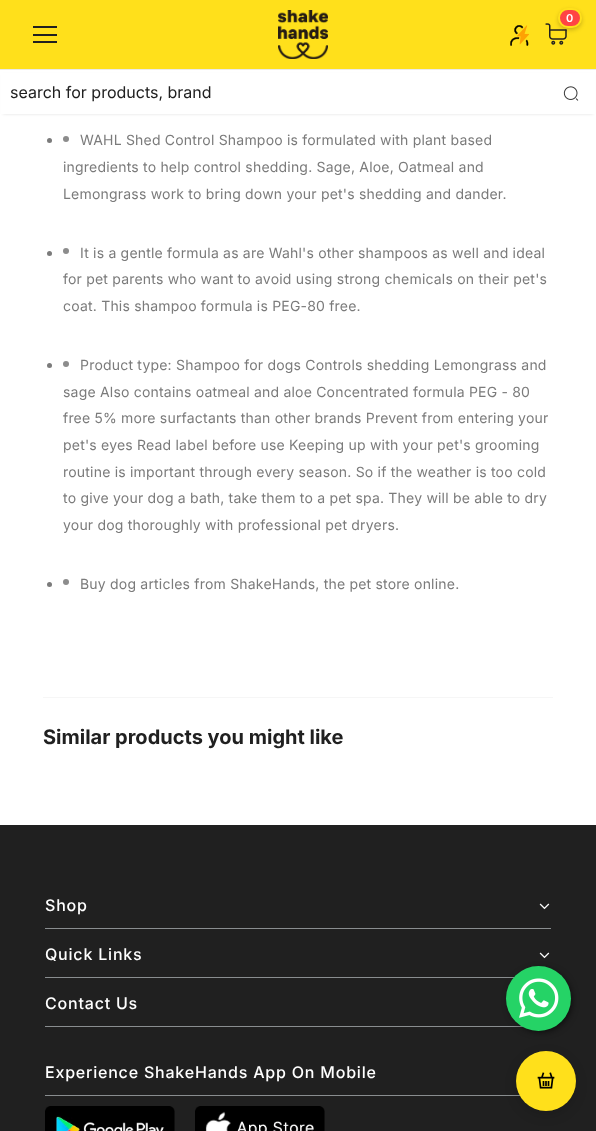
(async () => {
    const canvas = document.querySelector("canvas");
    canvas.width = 596;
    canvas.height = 1131;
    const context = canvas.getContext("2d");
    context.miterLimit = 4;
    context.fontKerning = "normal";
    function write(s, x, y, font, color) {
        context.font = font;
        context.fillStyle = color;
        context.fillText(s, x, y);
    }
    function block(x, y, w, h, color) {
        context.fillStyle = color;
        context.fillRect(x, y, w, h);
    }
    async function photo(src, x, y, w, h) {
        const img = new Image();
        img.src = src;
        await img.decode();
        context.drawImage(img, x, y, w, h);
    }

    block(0, 0, 596, 1131, "rgb(255, 255, 255)");
    block(0, 0, 596, 69, "rgb(255, 224, 27)");
    await photo("media/1.png", 278, 10, 50, 49);
    await photo("media/2.png", 545, 23, 22, 22);
    context.fillStyle = "rgba(0, 0, 0, 0.2)";
    context.filter = "blur(2px)";
    context.beginPath();
    context.roundRect(558, 10, 24, 20, 10);
    context.fill();
    context.filter = "none";
    context.fillStyle = "rgb(255, 68, 68)";
    context.beginPath();
    context.roundRect(559, 9, 22, 18, 9);
    context.fill();
    context.strokeStyle = "rgb(255, 224, 27)";
    context.lineWidth = 2;
    context.stroke();
    write("0", 566, 22, "600 11px Inter", "rgb(255, 255, 255)");
    await photo("media/3.png", 510, 25, 19, 21);
    context.fillStyle = "rgba(0, 0, 0, 0.12)";
    context.filter = "blur(1.5px)";
    context.beginPath();
    context.rect(3, 75, 590, 39);
    context.fill();
    context.filter = "none";
    block(1, 73, 594, 41, "rgb(255, 255, 255)");
    block(0, 69, 596, 1, "rgb(234, 234, 234)");
    write("search for products, brand", 10, 98, "16px Inter", "rgb(32, 32, 32)");
    await photo("media/4.png", 563, 86, 16, 15);
    block(33, 26, 24, 2, "rgb(32, 32, 32)");
    block(33, 34, 24, 2, "rgb(32, 32, 32)");
    block(33, 41, 24, 2, "rgb(32, 32, 32)");
    context.fillStyle = "rgb(123, 123, 123)";
    context.beginPath();
    context.arc(49.5, 140.5, 2.5, 0, Math.PI * 2);
    context.fill();
    context.fillStyle = "rgb(140, 140, 140)";
    context.beginPath();
    context.arc(66, 139, 3, 0, Math.PI * 2);
    context.fill();
    context.letterSpacing = "0.2px";
    write("WAHL Shed Control Shampoo is formulated with plant based", 80, 145, "14px Inter", "rgb(123, 123, 123)");
    write("ingredients to help control shedding. Sage, Aloe, Oatmeal and", 63, 172, "14px Inter", "rgb(123, 123, 123)");
    write("Lemongrass work to bring down your pet's shedding and dander.", 63, 199, "14px Inter", "rgb(123, 123, 123)");
    context.beginPath();
    context.arc(49.5, 253.5, 2.5, 0, Math.PI * 2);
    context.fill();
    context.fillStyle = "rgb(140, 140, 140)";
    context.beginPath();
    context.arc(66, 251, 3, 0, Math.PI * 2);
    context.fill();
    write("It is a gentle formula as are Wahl's other shampoos as well and ideal", 80, 258, "14px Inter", "rgb(123, 123, 123)");
    write("for pet parents who want to avoid using strong chemicals on their pet's", 63, 284, "14px Inter", "rgb(123, 123, 123)");
    write("coat. This shampoo formula is PEG-80 free.", 63, 311, "14px Inter", "rgb(123, 123, 123)");
    context.beginPath();
    context.arc(49.5, 365.5, 2.5, 0, Math.PI * 2);
    context.fill();
    context.fillStyle = "rgb(140, 140, 140)";
    context.beginPath();
    context.arc(66, 364, 3, 0, Math.PI * 2);
    context.fill();
    write("Product type: Shampoo for dogs Controls shedding Lemongrass and", 80, 370, "14px Inter", "rgb(123, 123, 123)");
    write("sage Also contains oatmeal and aloe Concentrated formula PEG - 80", 63, 397, "14px Inter", "rgb(123, 123, 123)");
    write("free 5% more surfactants than other brands Prevent from entering your", 63, 423, "14px Inter", "rgb(123, 123, 123)");
    write("pet's eyes Read label before use Keeping up with your pet's grooming", 63, 450, "14px Inter", "rgb(123, 123, 123)");
    write("routine is important through every season. So if the weather is too cold", 63, 477, "14px Inter", "rgb(123, 123, 123)");
    write("to give your dog a bath, take them to a pet spa. They will be able to dry", 63, 503, "14px Inter", "rgb(123, 123, 123)");
    write("your dog thoroughly with professional pet dryers.", 63, 530, "14px Inter", "rgb(123, 123, 123)");
    context.beginPath();
    context.arc(49.5, 584.5, 2.5, 0, Math.PI * 2);
    context.fill();
    context.fillStyle = "rgb(140, 140, 140)";
    context.beginPath();
    context.arc(66, 582, 3, 0, Math.PI * 2);
    context.fill();
    write("Buy dog articles from ShakeHands, the pet store online.", 80, 589, "14px Inter", "rgb(123, 123, 123)");
    block(43, 697, 510, 1, "rgb(246, 246, 246)");
    context.letterSpacing = "0px";
    write("Similar products you might like", 43, 744, "bold 20px Inter", "rgb(32, 32, 32)");
    block(0, 825, 596, 306, "rgb(32, 32, 32)");
    block(45, 928, 506, 1, "rgb(137, 141, 143)");
    context.letterSpacing = "0.8px";
    write("Shop", 45, 911, "500 16px Inter", "rgb(255, 255, 255)");
    await photo("media/5.png", 539, 903, 11, 7);
    block(45, 977, 470, 1, "rgb(137, 141, 143)");
    write("Quick Links", 45, 960, "500 16px Inter", "rgb(255, 255, 255)");
    await photo("media/5.png", 539, 952, 11, 7);
    block(45, 1026, 478, 1, "rgb(137, 141, 143)");
    write("Contact Us", 45, 1009, "500 16px Inter", "rgb(255, 255, 255)");
    block(45, 1095, 475, 1, "rgb(137, 141, 143)");
    write("Experience ShakeHands App On Mobile", 45, 1078, "500 16px Inter", "rgb(255, 255, 255)");
    await photo("media/6.png", 45, 1106, 130, 25);
    await photo("media/7.png", 195, 1106, 130, 25);
    context.fillStyle = "rgb(0, 0, 0)";
    context.filter = "blur(4px)";
    context.beginPath();
    context.roundRect(511, 971, 59, 59, 29.5);
    context.fill();
    context.filter = "none";
    context.fillStyle = "rgb(37, 211, 102)";
    context.beginPath();
    context.arc(538.5, 998.5, 32.5, 0, Math.PI * 2);
    context.fill();
    await photo("media/8.png", 519, 978, 40, 40);
    context.fillStyle = "rgba(0, 0, 0, 0.15)";
    context.filter = "blur(6px)";
    context.beginPath();
    context.roundRect(516, 1055, 60, 60, 30);
    context.fill();
    context.filter = "none";
    context.fillStyle = "rgb(255, 224, 27)";
    context.beginPath();
    context.arc(546, 1081, 30, 0, Math.PI * 2);
    context.fill();
    await photo("media/9.png", 537, 1072, 18, 17);
})();
